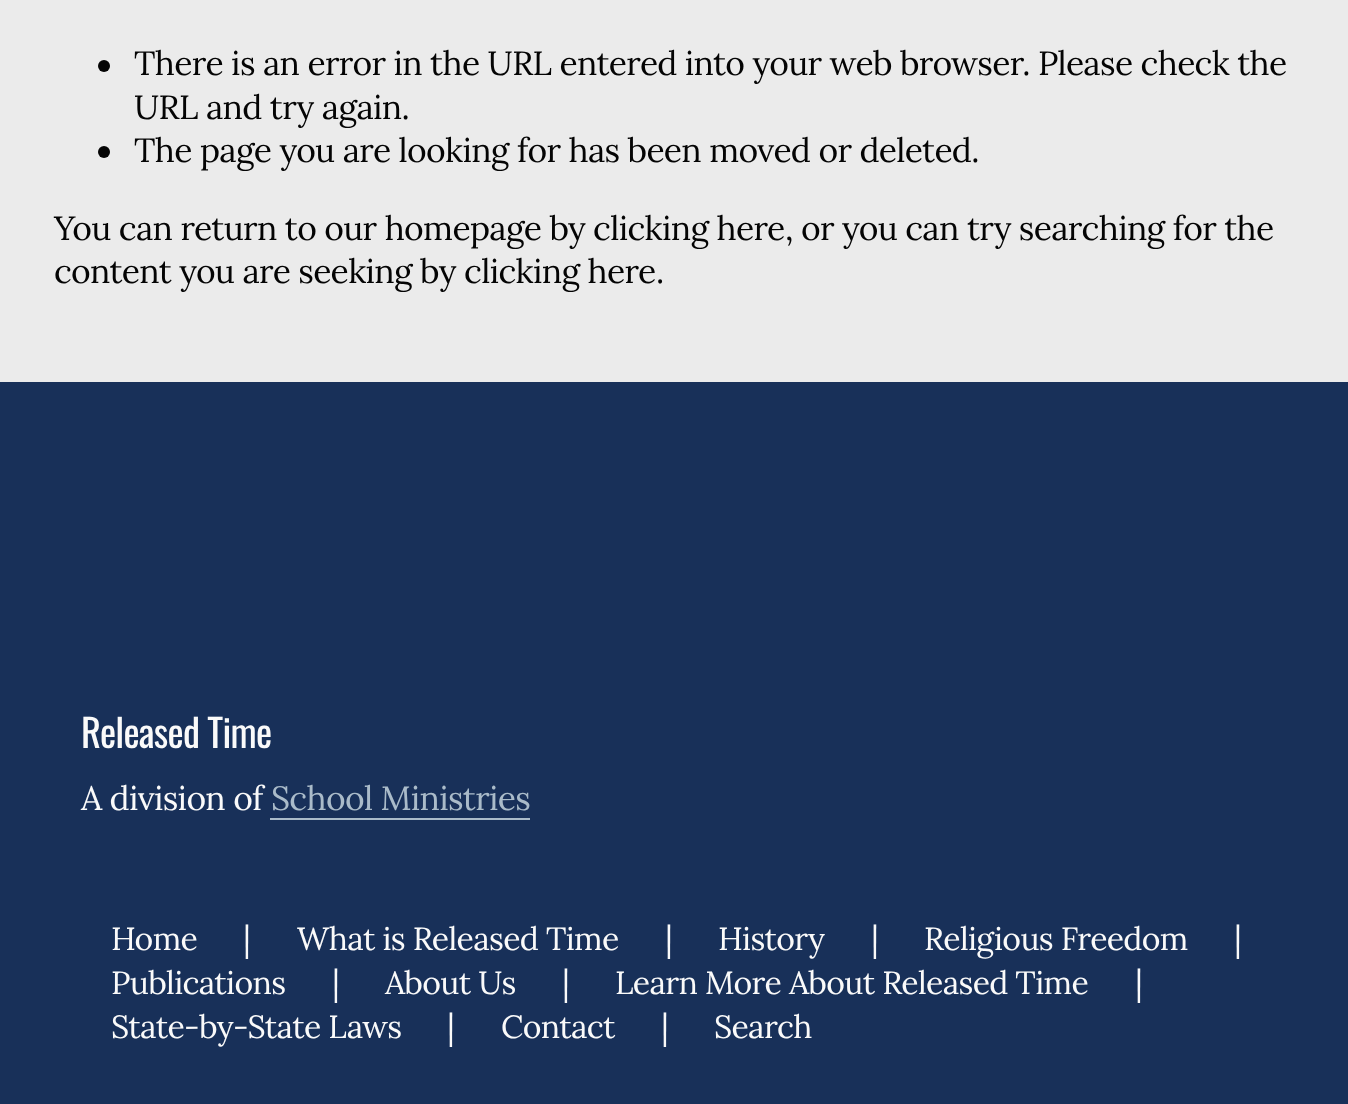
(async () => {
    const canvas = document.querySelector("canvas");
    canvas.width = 1348;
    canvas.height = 1104;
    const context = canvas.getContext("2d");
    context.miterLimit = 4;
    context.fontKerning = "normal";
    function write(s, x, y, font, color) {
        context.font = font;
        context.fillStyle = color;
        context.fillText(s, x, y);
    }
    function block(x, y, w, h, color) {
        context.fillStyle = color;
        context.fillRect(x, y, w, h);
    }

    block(0, 0, 1348, 1104, "rgb(235, 235, 235)");
    context.fillStyle = "rgb(4, 4, 4)";
    context.beginPath();
    context.arc(104, 66, 6, 0, Math.PI * 2);
    context.fill();
    context.letterSpacing = "-0.67px";
    write("There is an error in the URL entered into your web browser. Please check the", 134, 75, "33.6px Lora", "rgb(4, 4, 4)");
    write("URL and try again.", 134, 119, "33.6px Lora", "rgb(4, 4, 4)");
    context.beginPath();
    context.arc(104, 152, 6, 0, Math.PI * 2);
    context.fill();
    write("The page you are looking for has been moved or deleted.", 134, 162, "33.6px Lora", "rgb(4, 4, 4)");
    write("You can return to our homepage by", 54, 240, "33.6px Lora", "rgb(4, 4, 4)");
    write("clicking here", 593, 240, "33.6px Lora", "rgb(4, 4, 4)");
    write(", or you can try searching for the", 785, 240, "33.6px Lora", "rgb(4, 4, 4)");
    write("content you are seeking by", 54, 283, "33.6px Lora", "rgb(4, 4, 4)");
    write("clicking here", 464, 283, "33.6px Lora", "rgb(4, 4, 4)");
    write(".", 656, 283, "33.6px Lora", "rgb(4, 4, 4)");
    block(0, 382, 1348, 722, "rgb(24, 48, 89)");
    context.letterSpacing = "-0.75px";
    write("Released Time", 81, 748, "38.5px Oswald", "rgb(250, 250, 250)");
    context.letterSpacing = "-0.67px";
    write("A division of", 81, 810, "33.6px Lora", "rgb(250, 250, 250)");
    write("School Ministries", 271, 810, "33.6px Lora", "rgb(170, 187, 201)");
    block(270, 818, 260, 2, "rgb(170, 187, 201)");
    write("Home", 111, 950, "32px Lora", "rgb(250, 250, 250)");
    write("|", 243, 950, "33.6px Lora", "rgb(250, 250, 250)");
    write("What is Released Time", 297, 950, "32px Lora", "rgb(250, 250, 250)");
    write("|", 665, 950, "33.6px Lora", "rgb(250, 250, 250)");
    write("History", 718, 950, "32px Lora", "rgb(250, 250, 250)");
    write("|", 871, 950, "33.6px Lora", "rgb(250, 250, 250)");
    write("Religious Freedom", 924, 950, "32px Lora", "rgb(250, 250, 250)");
    write("|", 1234, 950, "33.6px Lora", "rgb(250, 250, 250)");
    write("Publications", 111, 994, "32px Lora", "rgb(250, 250, 250)");
    write("|", 332, 994, "33.6px Lora", "rgb(250, 250, 250)");
    write("About Us", 385, 994, "32px Lora", "rgb(250, 250, 250)");
    write("|", 562, 994, "33.6px Lora", "rgb(250, 250, 250)");
    write("Learn More About Released Time", 615, 994, "32px Lora", "rgb(250, 250, 250)");
    write("|", 1135, 994, "33.6px Lora", "rgb(250, 250, 250)");
    write("State-by-State Laws", 111, 1038, "32px Lora", "rgb(250, 250, 250)");
    write("|", 447, 1038, "33.6px Lora", "rgb(250, 250, 250)");
    write("Contact", 501, 1038, "32px Lora", "rgb(250, 250, 250)");
    write("|", 661, 1038, "33.6px Lora", "rgb(250, 250, 250)");
    write("Search", 714, 1038, "32px Lora", "rgb(250, 250, 250)");
})();
